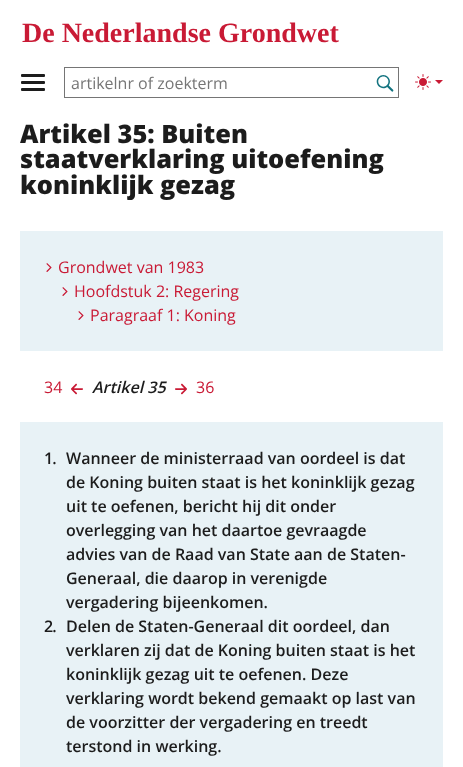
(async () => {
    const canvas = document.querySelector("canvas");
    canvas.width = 463;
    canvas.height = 767;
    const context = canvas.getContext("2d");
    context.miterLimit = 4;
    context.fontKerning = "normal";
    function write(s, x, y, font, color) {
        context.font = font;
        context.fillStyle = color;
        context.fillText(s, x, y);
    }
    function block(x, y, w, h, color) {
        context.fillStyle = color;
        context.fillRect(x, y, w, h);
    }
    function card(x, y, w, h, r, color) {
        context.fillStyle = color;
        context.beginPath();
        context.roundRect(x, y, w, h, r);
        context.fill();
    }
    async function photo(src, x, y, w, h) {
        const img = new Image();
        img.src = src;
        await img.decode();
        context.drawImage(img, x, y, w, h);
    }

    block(0, 0, 463, 767, "rgb(255, 255, 255)");
    write("De Nederlandse Grondwet", 22, 42, "bold 28px Liberation Serif", "rgb(201, 26, 53)");
    context.strokeStyle = "rgb(117, 117, 117)";
    context.strokeRect(64.5, 67.5, 334, 30);
    write("artikelnr of zoekterm", 71, 89, "16px Open Sans", "rgb(118, 118, 118)");
    await photo("media/1.png", 376, 75, 18, 17);
    await photo("media/2.png", 415, 74, 16, 16);
    context.fillStyle = "rgb(201, 26, 53)";
    context.beginPath();
    context.moveTo(435, 80);
    context.lineTo(443, 80);
    context.lineTo(439, 84);
    context.closePath();
    context.fill();
    card(21, 74, 24, 3, 1, "rgb(28, 28, 28)");
    card(21, 81, 24, 3, 1, "rgb(28, 28, 28)");
    card(21, 88, 24, 3, 1, "rgb(28, 28, 28)");
    write("Artikel 35: Buiten", 20, 143, "800 25.4px Open Sans", "rgb(28, 28, 28)");
    write("staatverklaring uitoefening", 20, 168, "800 25.4px Open Sans", "rgb(28, 28, 28)");
    write("koninklijk gezag", 20, 194, "800 25.4px Open Sans", "rgb(28, 28, 28)");
    block(20, 231, 423, 120, "rgb(232, 242, 246)");
    await photo("media/3.png", 46, 263, 6, 9);
    write("Grondwet van 1983", 58, 273, "16px Open Sans", "rgb(201, 26, 53)");
    await photo("media/3.png", 62, 287, 6, 9);
    write("Hoofdstuk 2: Regering", 74, 297, "16px Open Sans", "rgb(201, 26, 53)");
    await photo("media/3.png", 78, 311, 6, 9);
    write("Paragraaf 1: Koning", 90, 321, "16px Open Sans", "rgb(201, 26, 53)");
    write("34", 44, 393, "16px Open Sans", "rgb(201, 26, 53)");
    await photo("media/4.png", 71, 383, 12, 12);
    write("Artikel 35", 92, 393, "italic 600 16px Open Sans", "rgb(28, 28, 28)");
    await photo("media/5.png", 175, 383, 12, 12);
    write("36", 196, 393, "16px Open Sans", "rgb(201, 26, 53)");
    block(20, 422, 423, 345, "rgb(232, 242, 246)");
    context.letterSpacing = "-1px";
    write("1.", 44, 464, "600 16px Open Sans", "rgb(28, 28, 28)");
    context.letterSpacing = "0px";
    write("Wanneer de ministerraad van oordeel is dat", 66, 464, "600 16px Open Sans", "rgb(28, 28, 28)");
    write("de Koning buiten staat is het koninklijk gezag", 66, 488, "600 16px Open Sans", "rgb(28, 28, 28)");
    write("uit te oefenen, bericht hij dit onder", 66, 512, "600 16px Open Sans", "rgb(28, 28, 28)");
    write("overlegging van het daartoe gevraagde", 66, 536, "600 16px Open Sans", "rgb(28, 28, 28)");
    write("advies van de Raad van State aan de Staten-", 66, 560, "600 16px Open Sans", "rgb(28, 28, 28)");
    write("Generaal, die daarop in verenigde", 66, 584, "600 16px Open Sans", "rgb(28, 28, 28)");
    write("vergadering bijeenkomen.", 66, 608, "600 16px Open Sans", "rgb(28, 28, 28)");
    context.letterSpacing = "-1px";
    write("2.", 44, 632, "600 16px Open Sans", "rgb(28, 28, 28)");
    context.letterSpacing = "0px";
    write("Delen de Staten-Generaal dit oordeel, dan", 66, 632, "600 16px Open Sans", "rgb(28, 28, 28)");
    write("verklaren zij dat de Koning buiten staat is het", 66, 656, "600 16px Open Sans", "rgb(28, 28, 28)");
    write("koninklijk gezag uit te oefenen. Deze", 66, 680, "600 16px Open Sans", "rgb(28, 28, 28)");
    write("verklaring wordt bekend gemaakt op last van", 66, 704, "600 16px Open Sans", "rgb(28, 28, 28)");
    write("de voorzitter der vergadering en treedt", 66, 728, "600 16px Open Sans", "rgb(28, 28, 28)");
    write("terstond in werking.", 66, 752, "600 16px Open Sans", "rgb(28, 28, 28)");
})();
